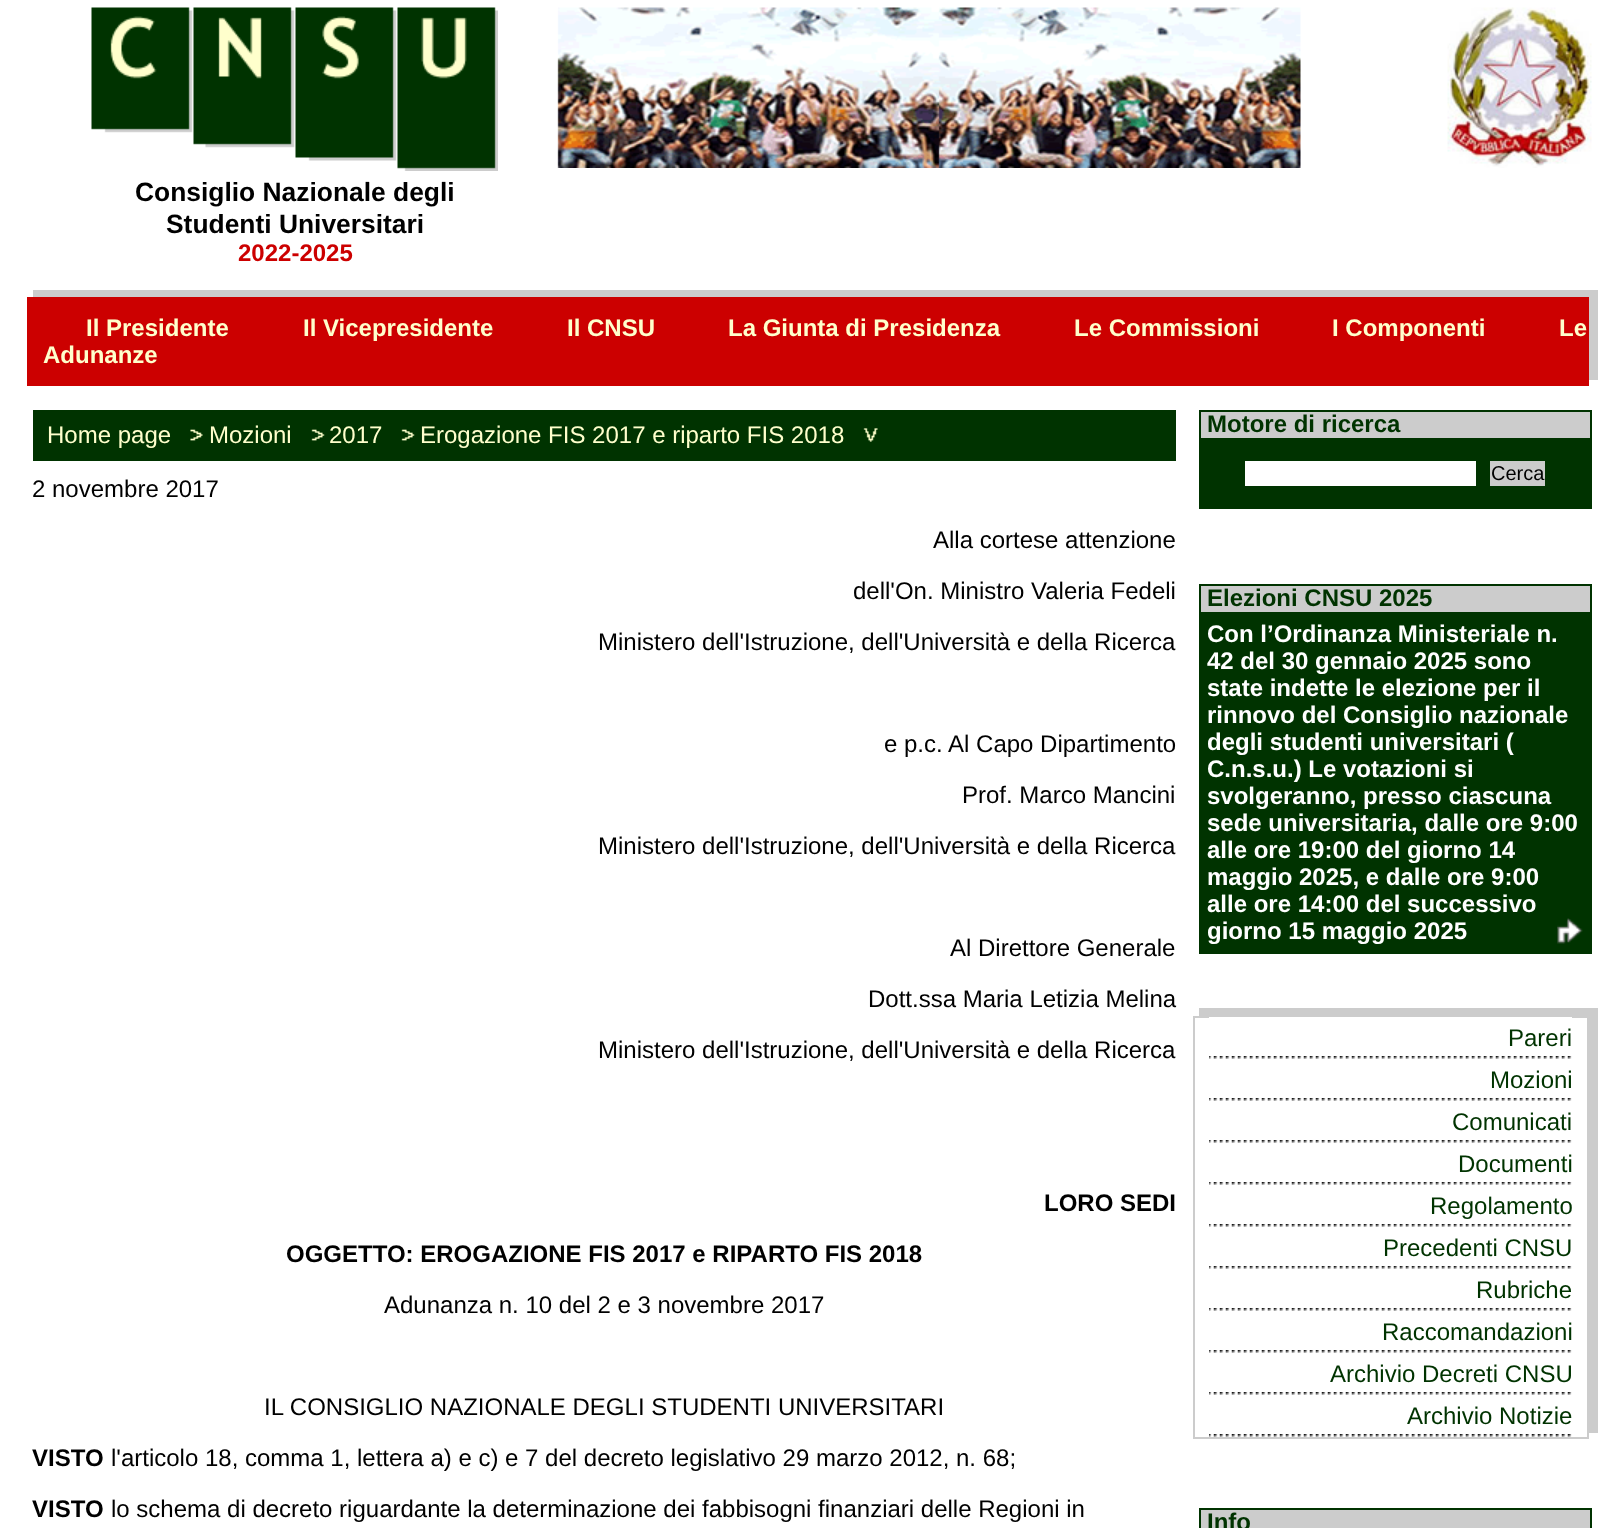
(async () => {
    const canvas = document.querySelector("canvas");
    canvas.width = 1624;
    canvas.height = 1528;
    const context = canvas.getContext("2d");
    context.miterLimit = 4;
    context.fontKerning = "normal";
    function write(s, x, y, font, color) {
        context.font = font;
        context.fillStyle = color;
        context.fillText(s, x, y);
    }
    function block(x, y, w, h, color) {
        context.fillStyle = color;
        context.fillRect(x, y, w, h);
    }
    async function photo(src, x, y, w, h) {
        const img = new Image();
        img.src = src;
        await img.decode();
        context.drawImage(img, x, y, w, h);
    }

    block(0, 0, 1624, 1528, "rgb(255, 255, 255)");
    await photo("media/1.png", 557, 7, 744, 161);
    await photo("media/2.png", 1447, 7, 145, 161);
    await photo("media/3.png", 91, 7, 407, 164);
    write("Consiglio Nazionale degli", 135, 201, "bold 26.4px Liberation Sans", "rgb(0, 0, 0)");
    write("Studenti Universitari", 166, 233, "bold 26.4px Liberation Sans", "rgb(0, 0, 0)");
    write("2022-2025", 238, 261, "bold 24px Liberation Sans", "rgb(204, 0, 0)");
    block(33, 290, 1565, 90, "rgb(204, 204, 204)");
    block(27, 297, 1562, 89, "rgb(204, 0, 0)");
    write("Il Presidente", 86, 336, "bold 24px Liberation Sans", "rgb(255, 255, 204)");
    write("Il Vicepresidente", 303, 336, "bold 24px Liberation Sans", "rgb(255, 255, 204)");
    write("Il CNSU", 567, 336, "bold 24px Liberation Sans", "rgb(255, 255, 204)");
    write("La Giunta di Presidenza", 728, 336, "bold 24px Liberation Sans", "rgb(255, 255, 204)");
    write("Le Commissioni", 1074, 336, "bold 24px Liberation Sans", "rgb(255, 255, 204)");
    write("I Componenti", 1332, 336, "bold 24px Liberation Sans", "rgb(255, 255, 204)");
    write("Le", 1559, 336, "bold 24px Liberation Sans", "rgb(255, 255, 204)");
    write("Adunanze", 43, 363, "bold 24px Liberation Sans", "rgb(255, 255, 204)");
    block(33, 410, 1143, 51, "rgb(0, 51, 0)");
    write("Home page", 47, 443, "24px Liberation Sans", "rgb(255, 255, 204)");
    await photo("media/4.png", 190, 429, 13, 12);
    write("Mozioni", 209, 443, "24px Liberation Sans", "rgb(255, 255, 204)");
    await photo("media/5.png", 311, 429, 14, 12);
    write("2017", 329, 443, "24px Liberation Sans", "rgb(255, 255, 204)");
    await photo("media/6.png", 401, 429, 14, 12);
    write("Erogazione FIS 2017 e riparto FIS 2018", 420, 443, "24px Liberation Sans", "rgb(255, 255, 204)");
    await photo("media/7.png", 863, 428, 15, 14);
    write("2 novembre 2017", 32, 497, "24px Liberation Sans", "rgb(0, 0, 0)");
    write("Alla cortese attenzione", 933, 548, "24px Liberation Sans", "rgb(0, 0, 0)");
    write("dell'On. Ministro Valeria Fedeli", 853, 599, "24px Liberation Sans", "rgb(0, 0, 0)");
    write("Ministero dell'Istruzione, dell'Università e della Ricerca", 598, 650, "24px Liberation Sans", "rgb(0, 0, 0)");
    write("e p.c. Al Capo Dipartimento", 884, 752, "24px Liberation Sans", "rgb(0, 0, 0)");
    write("Prof. Marco Mancini", 962, 803, "24px Liberation Sans", "rgb(0, 0, 0)");
    write("Ministero dell'Istruzione, dell'Università e della Ricerca", 598, 854, "24px Liberation Sans", "rgb(0, 0, 0)");
    write("Al Direttore Generale", 950, 956, "24px Liberation Sans", "rgb(0, 0, 0)");
    write("Dott.ssa Maria Letizia Melina", 868, 1007, "24px Liberation Sans", "rgb(0, 0, 0)");
    write("Ministero dell'Istruzione, dell'Università e della Ricerca", 598, 1058, "24px Liberation Sans", "rgb(0, 0, 0)");
    write("LORO SEDI", 1044, 1211, "bold 24px Liberation Sans", "rgb(0, 0, 0)");
    write("OGGETTO: EROGAZIONE FIS 2017 e RIPARTO FIS 2018", 286, 1262, "bold 24px Liberation Sans", "rgb(0, 0, 0)");
    write("Adunanza n. 10 del 2 e 3 novembre 2017", 384, 1313, "24px Liberation Sans", "rgb(0, 0, 0)");
    write("IL CONSIGLIO NAZIONALE DEGLI STUDENTI UNIVERSITARI", 264, 1415, "24px Liberation Sans", "rgb(0, 0, 0)");
    write("VISTO", 32, 1466, "bold 24px Liberation Sans", "rgb(0, 0, 0)");
    write("l'articolo 18, comma 1, lettera a) e c) e 7 del decreto legislativo 29 marzo 2012, n. 68;", 111, 1466, "24px Liberation Sans", "rgb(0, 0, 0)");
    write("VISTO", 32, 1517, "bold 24px Liberation Sans", "rgb(0, 0, 0)");
    write("lo schema di decreto riguardante la determinazione dei fabbisogni finanziari delle Regioni in", 111, 1517, "24px Liberation Sans", "rgb(0, 0, 0)");
    block(1199, 438, 393, 71, "rgb(0, 51, 0)");
    block(1201, 412, 389, 26, "rgb(204, 204, 204)");
    block(1199, 410, 393, 2, "rgb(0, 51, 0)");
    block(1590, 410, 2, 28, "rgb(0, 51, 0)");
    block(1199, 410, 2, 28, "rgb(0, 51, 0)");
    write("Motore di ricerca", 1207, 432, "bold 24px Liberation Sans", "rgb(0, 51, 0)");
    block(1245, 461, 231, 25, "rgb(255, 255, 255)");
    block(1490, 461, 55, 25, "rgb(204, 204, 204)");
    write("Cerca", 1491, 480, "20px Liberation Sans", "rgb(0, 0, 0)");
    block(1199, 612, 393, 342, "rgb(0, 51, 0)");
    block(1201, 586, 389, 26, "rgb(204, 204, 204)");
    block(1199, 584, 393, 2, "rgb(0, 51, 0)");
    block(1590, 584, 2, 28, "rgb(0, 51, 0)");
    block(1199, 584, 2, 28, "rgb(0, 51, 0)");
    write("Elezioni CNSU 2025", 1207, 606, "bold 24px Liberation Sans", "rgb(0, 51, 0)");
    await photo("media/8.png", 1557, 918, 26, 26);
    write("Con l’Ordinanza Ministeriale n.", 1207, 642, "bold 24px Liberation Sans", "rgb(255, 255, 255)");
    write("42 del 30 gennaio 2025 sono", 1207, 669, "bold 24px Liberation Sans", "rgb(255, 255, 255)");
    write("state indette le elezione per il", 1207, 696, "bold 24px Liberation Sans", "rgb(255, 255, 255)");
    write("rinnovo del Consiglio nazionale", 1207, 723, "bold 24px Liberation Sans", "rgb(255, 255, 255)");
    write("degli studenti universitari (", 1207, 750, "bold 24px Liberation Sans", "rgb(255, 255, 255)");
    write("C.n.s.u.) Le votazioni si", 1207, 777, "bold 24px Liberation Sans", "rgb(255, 255, 255)");
    write("svolgeranno, presso ciascuna", 1207, 804, "bold 24px Liberation Sans", "rgb(255, 255, 255)");
    write("sede universitaria, dalle ore 9:00", 1207, 831, "bold 24px Liberation Sans", "rgb(255, 255, 255)");
    write("alle ore 19:00 del giorno 14", 1207, 858, "bold 24px Liberation Sans", "rgb(255, 255, 255)");
    write("maggio 2025, e dalle ore 9:00", 1207, 885, "bold 24px Liberation Sans", "rgb(255, 255, 255)");
    write("alle ore 14:00 del successivo", 1207, 912, "bold 24px Liberation Sans", "rgb(255, 255, 255)");
    write("giorno 15 maggio 2025", 1207, 939, "bold 24px Liberation Sans", "rgb(255, 255, 255)");
    block(1199, 1008, 399, 425, "rgb(204, 204, 204)");
    block(1199, 1018, 388, 415, "rgb(255, 255, 255)");
    context.strokeStyle = "rgb(204, 204, 204)";
    context.lineWidth = 2;
    context.strokeRect(1194, 1017, 394, 421);
    block(1209, 1017, 363, 1, "rgb(255, 255, 255)");
    await photo("media/9.png", 1209, 1056, 363, 3);
    write("Pareri", 1508, 1046, "24px Liberation Sans", "rgb(0, 51, 0)");
    await photo("media/9.png", 1209, 1098, 363, 3);
    write("Mozioni", 1490, 1088, "24px Liberation Sans", "rgb(0, 51, 0)");
    await photo("media/9.png", 1209, 1140, 363, 3);
    write("Comunicati", 1452, 1130, "24px Liberation Sans", "rgb(0, 51, 0)");
    await photo("media/9.png", 1209, 1182, 363, 3);
    write("Documenti", 1458, 1172, "24px Liberation Sans", "rgb(0, 51, 0)");
    await photo("media/9.png", 1209, 1224, 363, 3);
    write("Regolamento", 1430, 1214, "24px Liberation Sans", "rgb(0, 51, 0)");
    await photo("media/9.png", 1209, 1266, 363, 3);
    write("Precedenti CNSU", 1383, 1256, "24px Liberation Sans", "rgb(0, 51, 0)");
    await photo("media/9.png", 1209, 1308, 363, 3);
    write("Rubriche", 1476, 1298, "24px Liberation Sans", "rgb(0, 51, 0)");
    await photo("media/9.png", 1209, 1350, 363, 3);
    write("Raccomandazioni", 1382, 1340, "24px Liberation Sans", "rgb(0, 51, 0)");
    await photo("media/9.png", 1209, 1392, 363, 3);
    write("Archivio Decreti CNSU", 1330, 1382, "24px Liberation Sans", "rgb(0, 51, 0)");
    await photo("media/9.png", 1209, 1434, 363, 3);
    write("Archivio Notizie", 1407, 1424, "24px Liberation Sans", "rgb(0, 51, 0)");
    context.fillStyle = "rgb(204, 204, 204)";
    context.beginPath();
    context.rect(1200, 1509, 391, 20);
    context.fill();
    context.strokeStyle = "rgb(0, 51, 0)";
    context.stroke();
    write("Info", 1207, 1530, "bold 24px Liberation Sans", "rgb(0, 51, 0)");
})();
